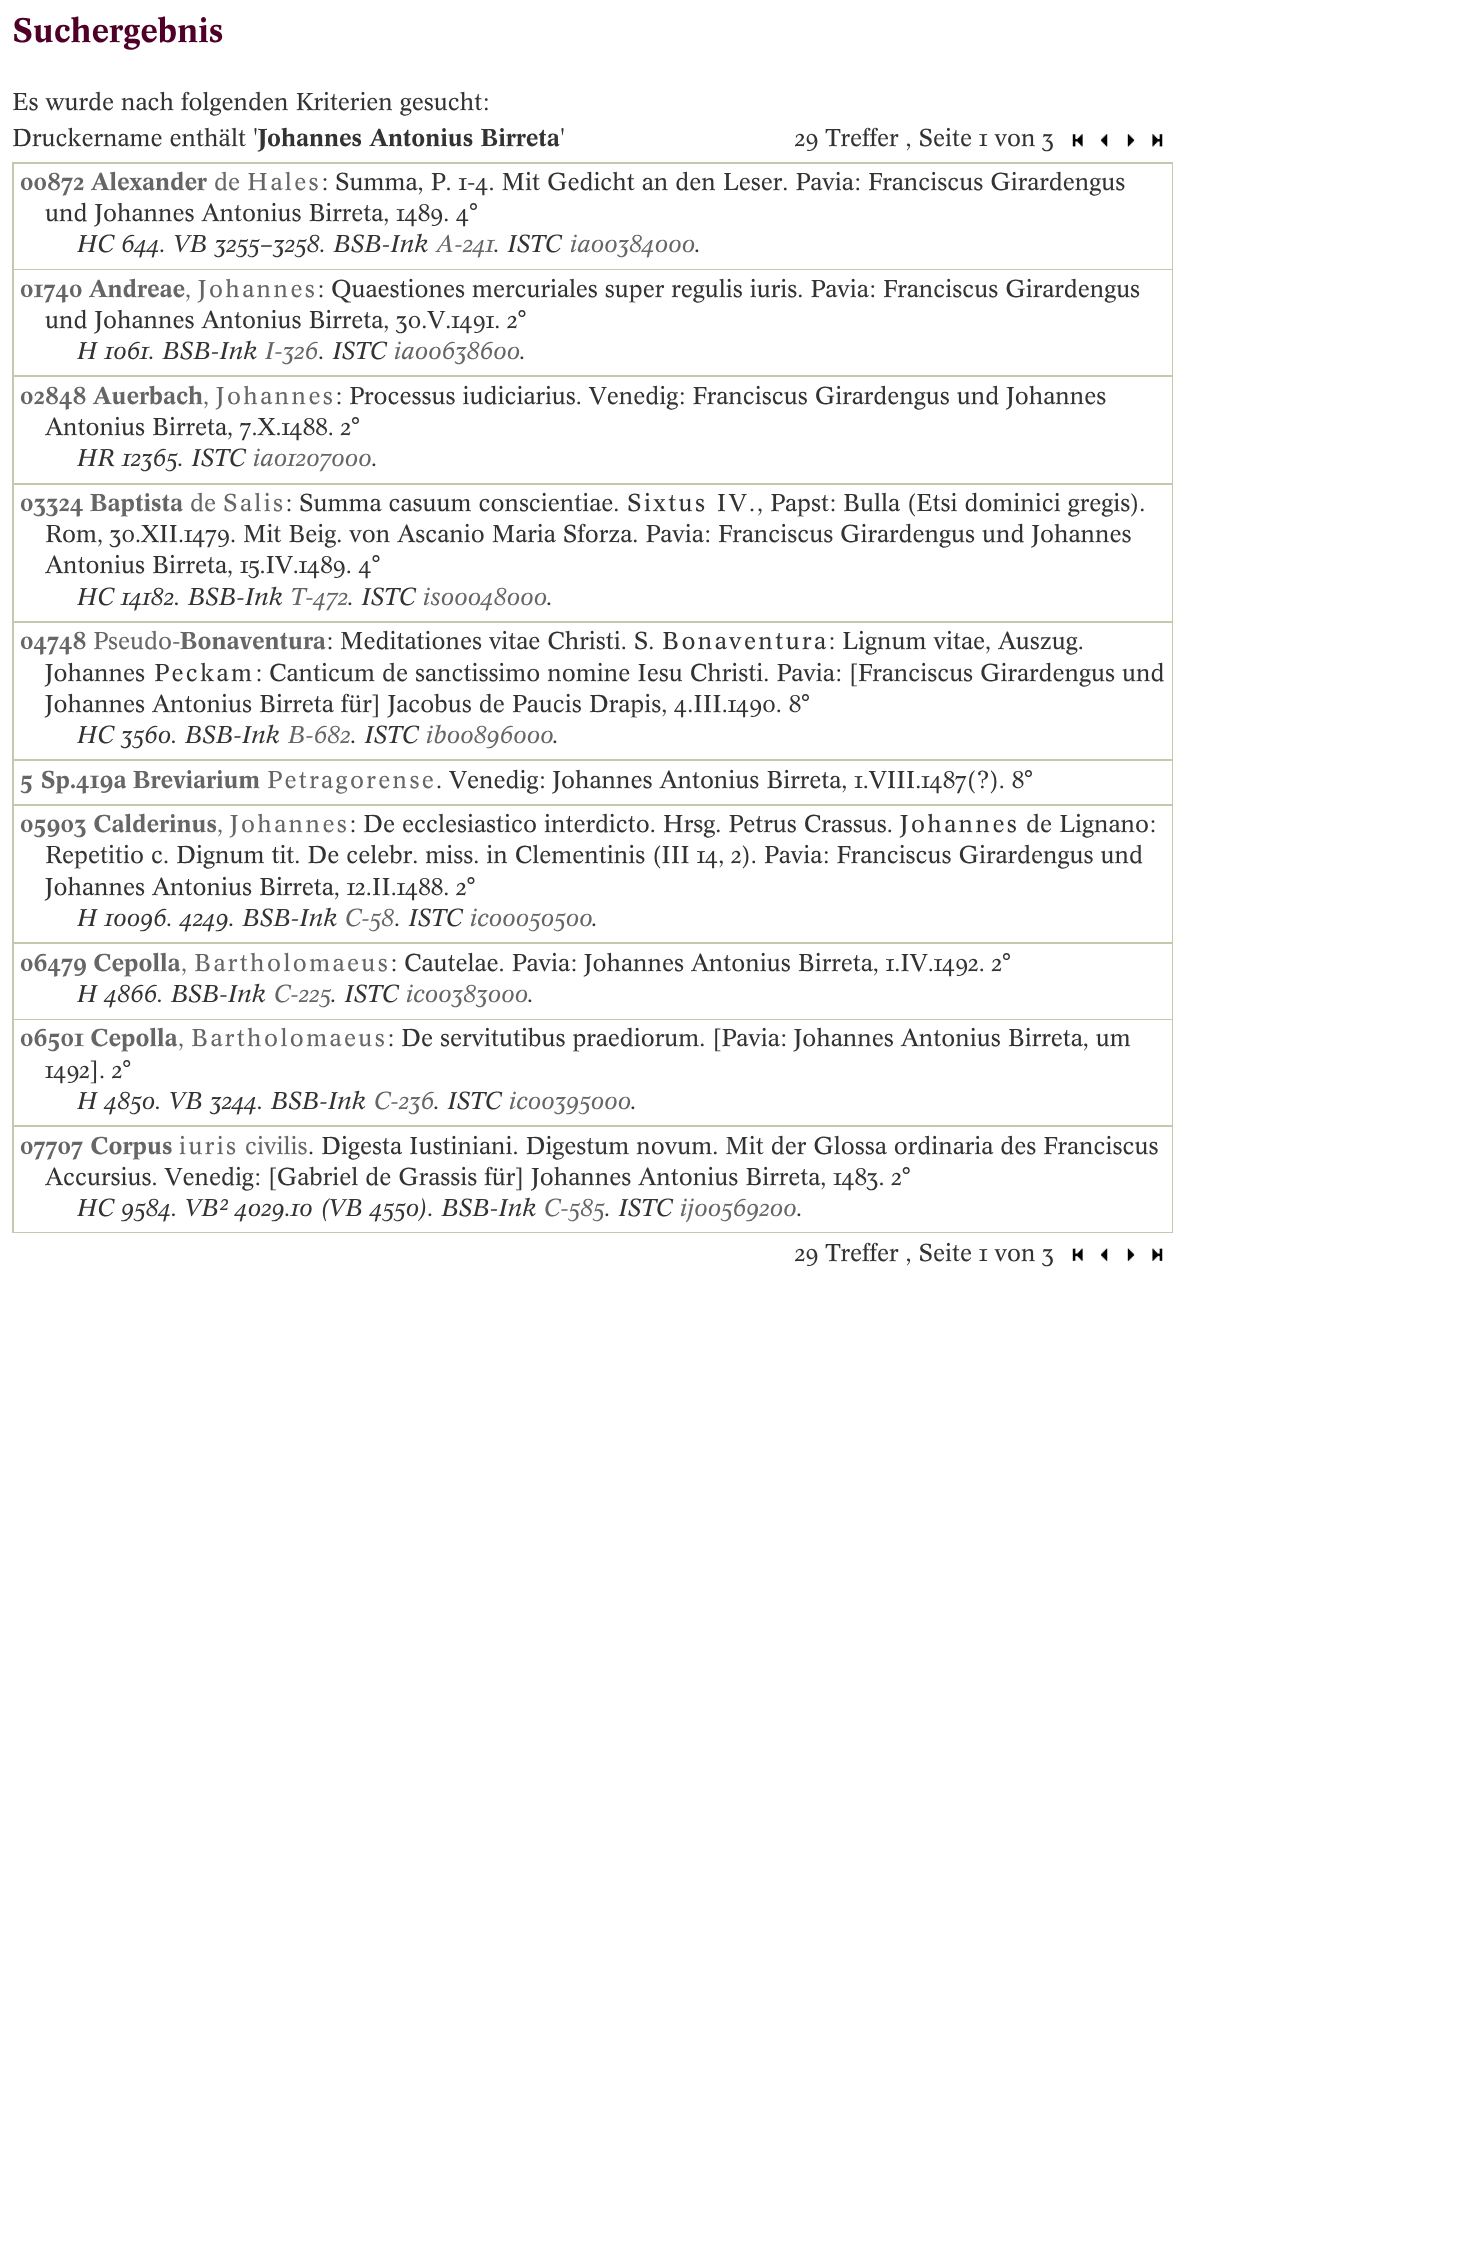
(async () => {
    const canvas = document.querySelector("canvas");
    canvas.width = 1475;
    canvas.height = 2242;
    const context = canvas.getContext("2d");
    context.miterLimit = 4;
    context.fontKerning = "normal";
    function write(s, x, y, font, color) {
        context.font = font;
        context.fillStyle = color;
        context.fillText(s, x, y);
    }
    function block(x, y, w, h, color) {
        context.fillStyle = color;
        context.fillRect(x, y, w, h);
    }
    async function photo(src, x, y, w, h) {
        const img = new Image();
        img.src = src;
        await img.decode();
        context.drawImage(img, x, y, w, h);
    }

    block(0, 0, 1475, 2242, "rgb(255, 255, 255)");
    write("Suchergebnis", 12, 42, "bold 33.5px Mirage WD", "rgb(78, 0, 40)");
    write("Es wurde nach folgenden Kriterien gesucht:", 12, 110, "24px Mirage WD", "rgb(51, 51, 51)");
    write("Druckername enthält '", 12, 146, "24px Mirage WD", "rgb(51, 51, 51)");
    write("Johannes Antonius Birreta", 258, 146, "bold 24px Mirage WD", "rgb(51, 51, 51)");
    write("'", 560, 146, "24px Mirage WD", "rgb(51, 51, 51)");
    write("29 Treffer , Seite 1 von 3", 795, 146, "24px Mirage WD", "rgb(51, 51, 51)");
    await photo("media/1.png", 1072, 134, 11, 13);
    await photo("media/2.png", 1101, 134, 7, 13);
    await photo("media/3.png", 1127, 134, 8, 13);
    await photo("media/4.png", 1152, 134, 11, 13);
    block(12, 162, 1161, 1071, "rgb(199, 199, 171)");
    block(14, 164, 1158, 105, "rgb(255, 255, 255)");
    write("00872", 20, 190, "bold 24px Mirage WD", "rgb(102, 102, 102)");
    write("Alexander", 91, 190, "bold 24px Mirage WD", "rgb(102, 102, 102)");
    write("de", 214, 190, "24px Mirage WD", "rgb(102, 102, 102)");
    context.letterSpacing = "2.4px";
    write("Hales", 247, 190, "24px Mirage WD", "rgb(102, 102, 102)");
    context.letterSpacing = "0px";
    write(": Summa, P. 1-4. Mit Gedicht an den Leser. Pavia: Franciscus Girardengus", 321, 190, "24px Mirage WD", "rgb(51, 51, 51)");
    write("und Johannes Antonius Birreta, 1489. 4°", 45, 221, "24px Mirage WD", "rgb(51, 51, 51)");
    write("HC 644. VB 3255–3258. BSB-Ink", 77, 252, "italic 24px Mirage WD", "rgb(51, 51, 51)");
    write("A-241", 436, 252, "italic 24px Mirage WD", "rgb(102, 102, 102)");
    write(". ISTC", 494, 252, "italic 24px Mirage WD", "rgb(51, 51, 51)");
    write("ia00384000", 570, 252, "italic 24px Mirage WD", "rgb(102, 102, 102)");
    write(".", 695, 252, "italic 24px Mirage WD", "rgb(51, 51, 51)");
    block(14, 270, 1158, 105, "rgb(255, 255, 255)");
    write("01740", 20, 297, "bold 24px Mirage WD", "rgb(102, 102, 102)");
    write("Andreae", 89, 297, "bold 24px Mirage WD", "rgb(102, 102, 102)");
    write(",", 185, 297, "24px Mirage WD", "rgb(102, 102, 102)");
    context.letterSpacing = "2.4px";
    write("Johannes", 198, 297, "24px Mirage WD", "rgb(102, 102, 102)");
    context.letterSpacing = "0px";
    write(": Quaestiones mercuriales super regulis iuris. Pavia: Franciscus Girardengus", 317, 297, "24px Mirage WD", "rgb(51, 51, 51)");
    write("und Johannes Antonius Birreta, 30.V.1491. 2°", 45, 328, "24px Mirage WD", "rgb(51, 51, 51)");
    write("H 1061. BSB-Ink", 77, 359, "italic 24px Mirage WD", "rgb(51, 51, 51)");
    write("I-326", 265, 359, "italic 24px Mirage WD", "rgb(102, 102, 102)");
    write(". ISTC", 319, 359, "italic 24px Mirage WD", "rgb(51, 51, 51)");
    write("ia00638600", 394, 359, "italic 24px Mirage WD", "rgb(102, 102, 102)");
    write(".", 520, 359, "italic 24px Mirage WD", "rgb(51, 51, 51)");
    block(14, 377, 1158, 106, "rgb(255, 255, 255)");
    write("02848", 20, 404, "bold 24px Mirage WD", "rgb(102, 102, 102)");
    write("Auerbach", 93, 404, "bold 24px Mirage WD", "rgb(102, 102, 102)");
    write(",", 203, 404, "24px Mirage WD", "rgb(102, 102, 102)");
    context.letterSpacing = "2.4px";
    write("Johannes", 216, 404, "24px Mirage WD", "rgb(102, 102, 102)");
    context.letterSpacing = "0px";
    write(": Processus iudiciarius. Venedig: Franciscus Girardengus und Johannes", 335, 404, "24px Mirage WD", "rgb(51, 51, 51)");
    write("Antonius Birreta, 7.X.1488. 2°", 45, 435, "24px Mirage WD", "rgb(51, 51, 51)");
    write("HR 12365. ISTC", 77, 466, "italic 24px Mirage WD", "rgb(51, 51, 51)");
    write("ia01207000", 253, 466, "italic 24px Mirage WD", "rgb(102, 102, 102)");
    write(".", 372, 466, "italic 24px Mirage WD", "rgb(51, 51, 51)");
    block(14, 485, 1158, 136, "rgb(255, 255, 255)");
    write("03324", 20, 511, "bold 24px Mirage WD", "rgb(102, 102, 102)");
    write("Baptista", 90, 511, "bold 24px Mirage WD", "rgb(102, 102, 102)");
    write("de", 190, 511, "24px Mirage WD", "rgb(102, 102, 102)");
    context.letterSpacing = "2.4px";
    write("Salis", 223, 511, "24px Mirage WD", "rgb(102, 102, 102)");
    context.letterSpacing = "0px";
    write(": Summa casuum conscientiae.", 285, 511, "24px Mirage WD", "rgb(51, 51, 51)");
    context.letterSpacing = "2.4px";
    write("Sixtus IV.", 627, 511, "24px Mirage WD", "rgb(51, 51, 51)");
    context.letterSpacing = "0px";
    write(", Papst: Bulla (Etsi dominici gregis).", 757, 511, "24px Mirage WD", "rgb(51, 51, 51)");
    write("Rom, 30.XII.1479. Mit Beig. von Ascanio Maria Sforza. Pavia: Franciscus Girardengus und Johannes", 45, 542, "24px Mirage WD", "rgb(51, 51, 51)");
    write("Antonius Birreta, 15.IV.1489. 4°", 45, 573, "24px Mirage WD", "rgb(51, 51, 51)");
    write("HC 14182. BSB-Ink", 77, 605, "italic 24px Mirage WD", "rgb(51, 51, 51)");
    write("T-472", 291, 605, "italic 24px Mirage WD", "rgb(102, 102, 102)");
    write(". ISTC", 348, 605, "italic 24px Mirage WD", "rgb(51, 51, 51)");
    write("is00048000", 423, 605, "italic 24px Mirage WD", "rgb(102, 102, 102)");
    write(".", 547, 605, "italic 24px Mirage WD", "rgb(51, 51, 51)");
    block(14, 623, 1158, 136, "rgb(255, 255, 255)");
    write("04748", 20, 649, "bold 24px Mirage WD", "rgb(102, 102, 102)");
    write("Pseudo-", 93, 649, "24px Mirage WD", "rgb(102, 102, 102)");
    write("Bonaventura", 180, 649, "bold 24px Mirage WD", "rgb(102, 102, 102)");
    write(": Meditationes vitae Christi. S.", 326, 649, "24px Mirage WD", "rgb(51, 51, 51)");
    context.letterSpacing = "2.4px";
    write("Bonaventura", 662, 649, "24px Mirage WD", "rgb(51, 51, 51)");
    context.letterSpacing = "0px";
    write(": Lignum vitae, Auszug.", 828, 649, "24px Mirage WD", "rgb(51, 51, 51)");
    write("Johannes", 45, 681, "24px Mirage WD", "rgb(51, 51, 51)");
    context.letterSpacing = "2.4px";
    write("Peckam", 154, 681, "24px Mirage WD", "rgb(51, 51, 51)");
    context.letterSpacing = "0px";
    write(": Canticum de sanctissimo nomine Iesu Christi. Pavia: [Franciscus Girardengus und", 255, 681, "24px Mirage WD", "rgb(51, 51, 51)");
    write("Johannes Antonius Birreta für] Jacobus de Paucis Drapis, 4.III.1490. 8°", 45, 712, "24px Mirage WD", "rgb(51, 51, 51)");
    write("HC 3560. BSB-Ink", 77, 743, "italic 24px Mirage WD", "rgb(51, 51, 51)");
    write("B-682", 288, 743, "italic 24px Mirage WD", "rgb(102, 102, 102)");
    write(". ISTC", 351, 743, "italic 24px Mirage WD", "rgb(51, 51, 51)");
    write("ib00896000", 426, 743, "italic 24px Mirage WD", "rgb(102, 102, 102)");
    write(".", 553, 743, "italic 24px Mirage WD", "rgb(51, 51, 51)");
    block(14, 761, 1158, 43, "rgb(255, 255, 255)");
    write("5 Sp.419a", 20, 788, "bold 24px Mirage WD", "rgb(102, 102, 102)");
    write("Breviarium", 133, 788, "bold 24px Mirage WD", "rgb(102, 102, 102)");
    context.letterSpacing = "2.4px";
    write("Petragorense", 267, 788, "24px Mirage WD", "rgb(102, 102, 102)");
    context.letterSpacing = "0px";
    write(". Venedig: Johannes Antonius Birreta, 1.VIII.1487(?). 8°", 436, 788, "24px Mirage WD", "rgb(51, 51, 51)");
    block(14, 806, 1158, 136, "rgb(255, 255, 255)");
    write("05903", 20, 832, "bold 24px Mirage WD", "rgb(102, 102, 102)");
    write("Calderinus", 93, 832, "bold 24px Mirage WD", "rgb(102, 102, 102)");
    write(",", 217, 832, "24px Mirage WD", "rgb(102, 102, 102)");
    context.letterSpacing = "2.4px";
    write("Johannes", 230, 832, "24px Mirage WD", "rgb(102, 102, 102)");
    context.letterSpacing = "0px";
    write(": De ecclesiastico interdicto. Hrsg. Petrus Crassus.", 349, 832, "24px Mirage WD", "rgb(51, 51, 51)");
    context.letterSpacing = "2.4px";
    write("Johannes", 900, 832, "24px Mirage WD", "rgb(51, 51, 51)");
    context.letterSpacing = "0px";
    write("de Lignano:", 1026, 832, "24px Mirage WD", "rgb(51, 51, 51)");
    write("Repetitio c. Dignum tit. De celebr. miss. in Clementinis (III 14, 2). Pavia: Franciscus Girardengus und", 45, 863, "24px Mirage WD", "rgb(51, 51, 51)");
    write("Johannes Antonius Birreta, 12.II.1488. 2°", 45, 895, "24px Mirage WD", "rgb(51, 51, 51)");
    write("H 10096. 4249. BSB-Ink", 77, 926, "italic 24px Mirage WD", "rgb(51, 51, 51)");
    write("C-58", 345, 926, "italic 24px Mirage WD", "rgb(102, 102, 102)");
    write(". ISTC", 395, 926, "italic 24px Mirage WD", "rgb(51, 51, 51)");
    write("ic00050500", 470, 926, "italic 24px Mirage WD", "rgb(102, 102, 102)");
    write(".", 592, 926, "italic 24px Mirage WD", "rgb(51, 51, 51)");
    block(14, 944, 1158, 75, "rgb(255, 255, 255)");
    write("06479", 20, 971, "bold 24px Mirage WD", "rgb(102, 102, 102)");
    write("Cepolla", 93, 971, "bold 24px Mirage WD", "rgb(102, 102, 102)");
    write(",", 181, 971, "24px Mirage WD", "rgb(102, 102, 102)");
    context.letterSpacing = "2.4px";
    write("Bartholomaeus", 194, 971, "24px Mirage WD", "rgb(102, 102, 102)");
    context.letterSpacing = "0px";
    write(": Cautelae. Pavia: Johannes Antonius Birreta, 1.IV.1492. 2°", 390, 971, "24px Mirage WD", "rgb(51, 51, 51)");
    write("H 4866. BSB-Ink", 77, 1002, "italic 24px Mirage WD", "rgb(51, 51, 51)");
    write("C-225", 274, 1002, "italic 24px Mirage WD", "rgb(102, 102, 102)");
    write(". ISTC", 331, 1002, "italic 24px Mirage WD", "rgb(51, 51, 51)");
    write("ic00383000", 406, 1002, "italic 24px Mirage WD", "rgb(102, 102, 102)");
    write(".", 528, 1002, "italic 24px Mirage WD", "rgb(51, 51, 51)");
    block(14, 1020, 1158, 105, "rgb(255, 255, 255)");
    write("06501", 20, 1046, "bold 24px Mirage WD", "rgb(102, 102, 102)");
    write("Cepolla", 90, 1046, "bold 24px Mirage WD", "rgb(102, 102, 102)");
    write(",", 178, 1046, "24px Mirage WD", "rgb(102, 102, 102)");
    context.letterSpacing = "2.4px";
    write("Bartholomaeus", 191, 1046, "24px Mirage WD", "rgb(102, 102, 102)");
    context.letterSpacing = "0px";
    write(": De servitutibus praediorum. [Pavia: Johannes Antonius Birreta, um", 387, 1046, "24px Mirage WD", "rgb(51, 51, 51)");
    write("1492]. 2°", 45, 1078, "24px Mirage WD", "rgb(51, 51, 51)");
    write("H 4850. VB 3244. BSB-Ink", 77, 1109, "italic 24px Mirage WD", "rgb(51, 51, 51)");
    write("C-236", 374, 1109, "italic 24px Mirage WD", "rgb(102, 102, 102)");
    write(". ISTC", 434, 1109, "italic 24px Mirage WD", "rgb(51, 51, 51)");
    write("ic00395000", 509, 1109, "italic 24px Mirage WD", "rgb(102, 102, 102)");
    write(".", 631, 1109, "italic 24px Mirage WD", "rgb(51, 51, 51)");
    block(14, 1127, 1158, 105, "rgb(255, 255, 255)");
    write("07707", 20, 1154, "bold 24px Mirage WD", "rgb(102, 102, 102)");
    write("Corpus", 90, 1154, "bold 24px Mirage WD", "rgb(102, 102, 102)");
    context.letterSpacing = "2.4px";
    write("iuris", 179, 1154, "24px Mirage WD", "rgb(102, 102, 102)");
    context.letterSpacing = "0px";
    write("civilis", 245, 1154, "24px Mirage WD", "rgb(102, 102, 102)");
    write(". Digesta Iustiniani. Digestum novum. Mit der Glossa ordinaria des Franciscus", 308, 1154, "24px Mirage WD", "rgb(51, 51, 51)");
    write("Accursius. Venedig: [Gabriel de Grassis für] Johannes Antonius Birreta, 1483. 2°", 45, 1185, "24px Mirage WD", "rgb(51, 51, 51)");
    write("HC 9584. VB² 4029.10 (VB 4550). BSB-Ink", 77, 1216, "italic 24px Mirage WD", "rgb(51, 51, 51)");
    write("C-585", 544, 1216, "italic 24px Mirage WD", "rgb(102, 102, 102)");
    write(". ISTC", 605, 1216, "italic 24px Mirage WD", "rgb(51, 51, 51)");
    write("ij00569200", 680, 1216, "italic 24px Mirage WD", "rgb(102, 102, 102)");
    write(".", 797, 1216, "italic 24px Mirage WD", "rgb(51, 51, 51)");
    write("29 Treffer , Seite 1 von 3", 795, 1261, "24px Mirage WD", "rgb(51, 51, 51)");
    await photo("media/5.png", 1072, 1248, 11, 13);
    await photo("media/6.png", 1101, 1248, 7, 13);
    await photo("media/7.png", 1127, 1248, 8, 13);
    await photo("media/8.png", 1152, 1248, 11, 13);
})();
